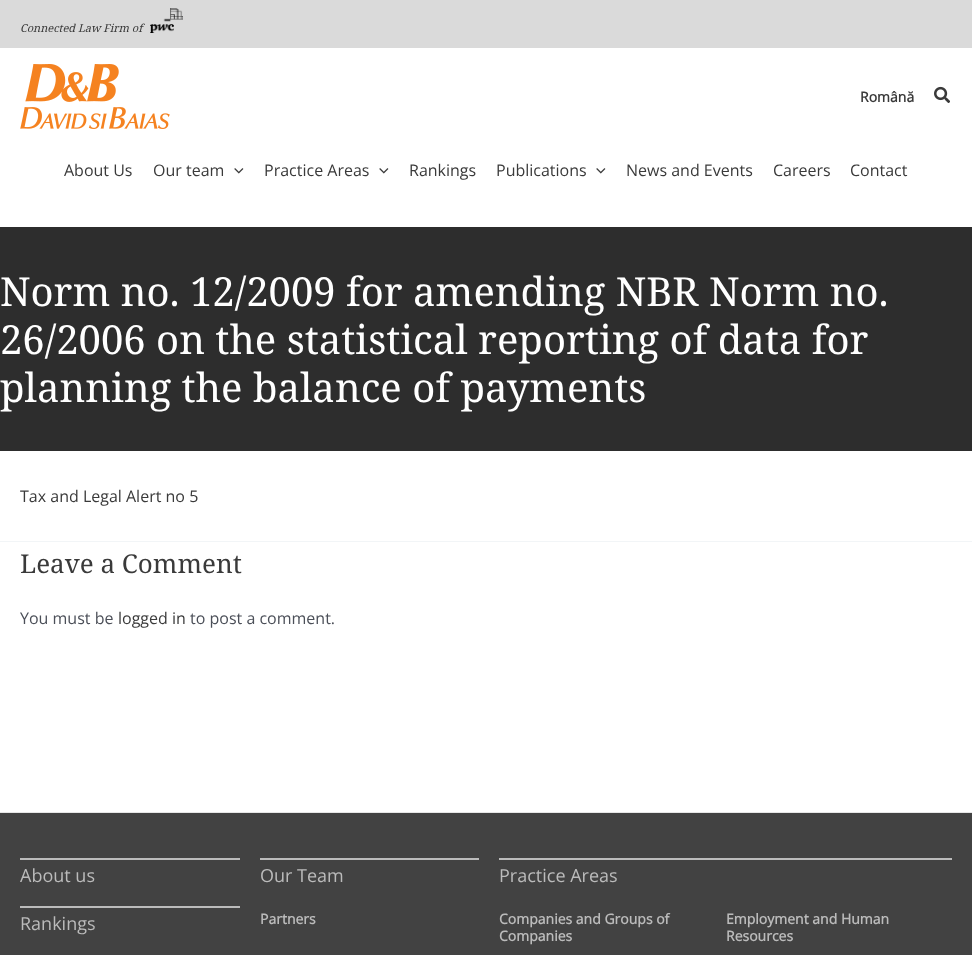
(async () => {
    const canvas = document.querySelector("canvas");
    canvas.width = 972;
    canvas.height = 955;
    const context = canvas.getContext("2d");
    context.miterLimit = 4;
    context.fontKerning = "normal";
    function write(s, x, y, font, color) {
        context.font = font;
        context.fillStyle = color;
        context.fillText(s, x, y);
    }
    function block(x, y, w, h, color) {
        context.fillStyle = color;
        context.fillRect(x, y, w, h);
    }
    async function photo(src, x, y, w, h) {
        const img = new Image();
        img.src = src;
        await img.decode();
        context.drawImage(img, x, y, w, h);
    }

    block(0, 0, 972, 955, "rgb(255, 255, 255)");
    block(0, 0, 972, 48, "rgb(218, 218, 218)");
    write("Connected Law Firm of", 20, 32, "italic 11px Noto Serif", "rgb(58, 58, 58)");
    await photo("media/1.png", 150, 8, 33, 25);
    await photo("media/2.png", 20, 64, 150, 65);
    write("Română", 860, 102, "bold 14px Open Sans", "rgb(58, 58, 58)");
    await photo("media/3.png", 934, 86, 16, 17);
    write("About Us", 64, 176, "16px Open Sans", "rgb(58, 58, 58)");
    write("Our team", 153, 176, "16px Open Sans", "rgb(58, 58, 58)");
    await photo("media/4.png", 234, 168, 10, 6);
    write("Practice Areas", 264, 176, "16px Open Sans", "rgb(58, 58, 58)");
    await photo("media/4.png", 379, 168, 10, 6);
    write("Rankings", 409, 176, "16px Open Sans", "rgb(58, 58, 58)");
    write("Publications", 496, 176, "16px Open Sans", "rgb(58, 58, 58)");
    await photo("media/4.png", 596, 168, 10, 6);
    write("News and Events", 626, 176, "16px Open Sans", "rgb(58, 58, 58)");
    write("Careers", 773, 176, "16px Open Sans", "rgb(58, 58, 58)");
    write("Contact", 850, 176, "16px Open Sans", "rgb(58, 58, 58)");
    block(0, 227, 972, 224, "rgb(45, 45, 45)");
    write("Norm no. 12/2009 for amending NBR Norm no.", 0, 306, "40px Noto Serif", "rgb(255, 255, 255)");
    write("26/2006 on the statistical reporting of data for", 0, 354, "40px Noto Serif", "rgb(255, 255, 255)");
    write("planning the balance of payments", 0, 402, "40px Noto Serif", "rgb(255, 255, 255)");
    write("Tax and Legal Alert no 5", 20, 502, "16px Open Sans", "rgb(58, 58, 58)");
    block(0, 541, 972, 1, "rgb(242, 245, 247)");
    write("Leave a Comment", 20, 573, "26px Noto Serif", "rgb(58, 58, 58)");
    write("You must be", 20, 624, "16px Open Sans", "rgb(75, 79, 88)");
    write("logged in", 118, 624, "16px Open Sans", "rgb(58, 58, 58)");
    write("to post a comment.", 190, 624, "16px Open Sans", "rgb(75, 79, 88)");
    block(0, 813, 972, 142, "rgb(66, 66, 66)");
    block(0, 812, 972, 1, "rgb(230, 230, 230)");
    block(20, 858, 220, 2, "rgb(187, 187, 187)");
    write("About us", 20, 882, "18px Open Sans", "rgb(187, 187, 187)");
    block(20, 906, 220, 2, "rgb(187, 187, 187)");
    write("Rankings", 20, 930, "18px Open Sans", "rgb(187, 187, 187)");
    block(260, 858, 219, 2, "rgb(187, 187, 187)");
    write("Our Team", 260, 882, "18px Open Sans", "rgb(187, 187, 187)");
    write("Partners", 260, 924, "bold 14px Open Sans", "rgb(187, 187, 187)");
    block(499, 858, 453, 2, "rgb(187, 187, 187)");
    write("Practice Areas", 499, 882, "18px Open Sans", "rgb(187, 187, 187)");
    write("Companies and Groups of", 499, 924, "bold 14px Open Sans", "rgb(187, 187, 187)");
    write("Companies", 499, 941, "bold 14px Open Sans", "rgb(187, 187, 187)");
    write("Employment and Human", 726, 924, "bold 14px Open Sans", "rgb(187, 187, 187)");
    write("Resources", 726, 941, "bold 14px Open Sans", "rgb(187, 187, 187)");
})();
